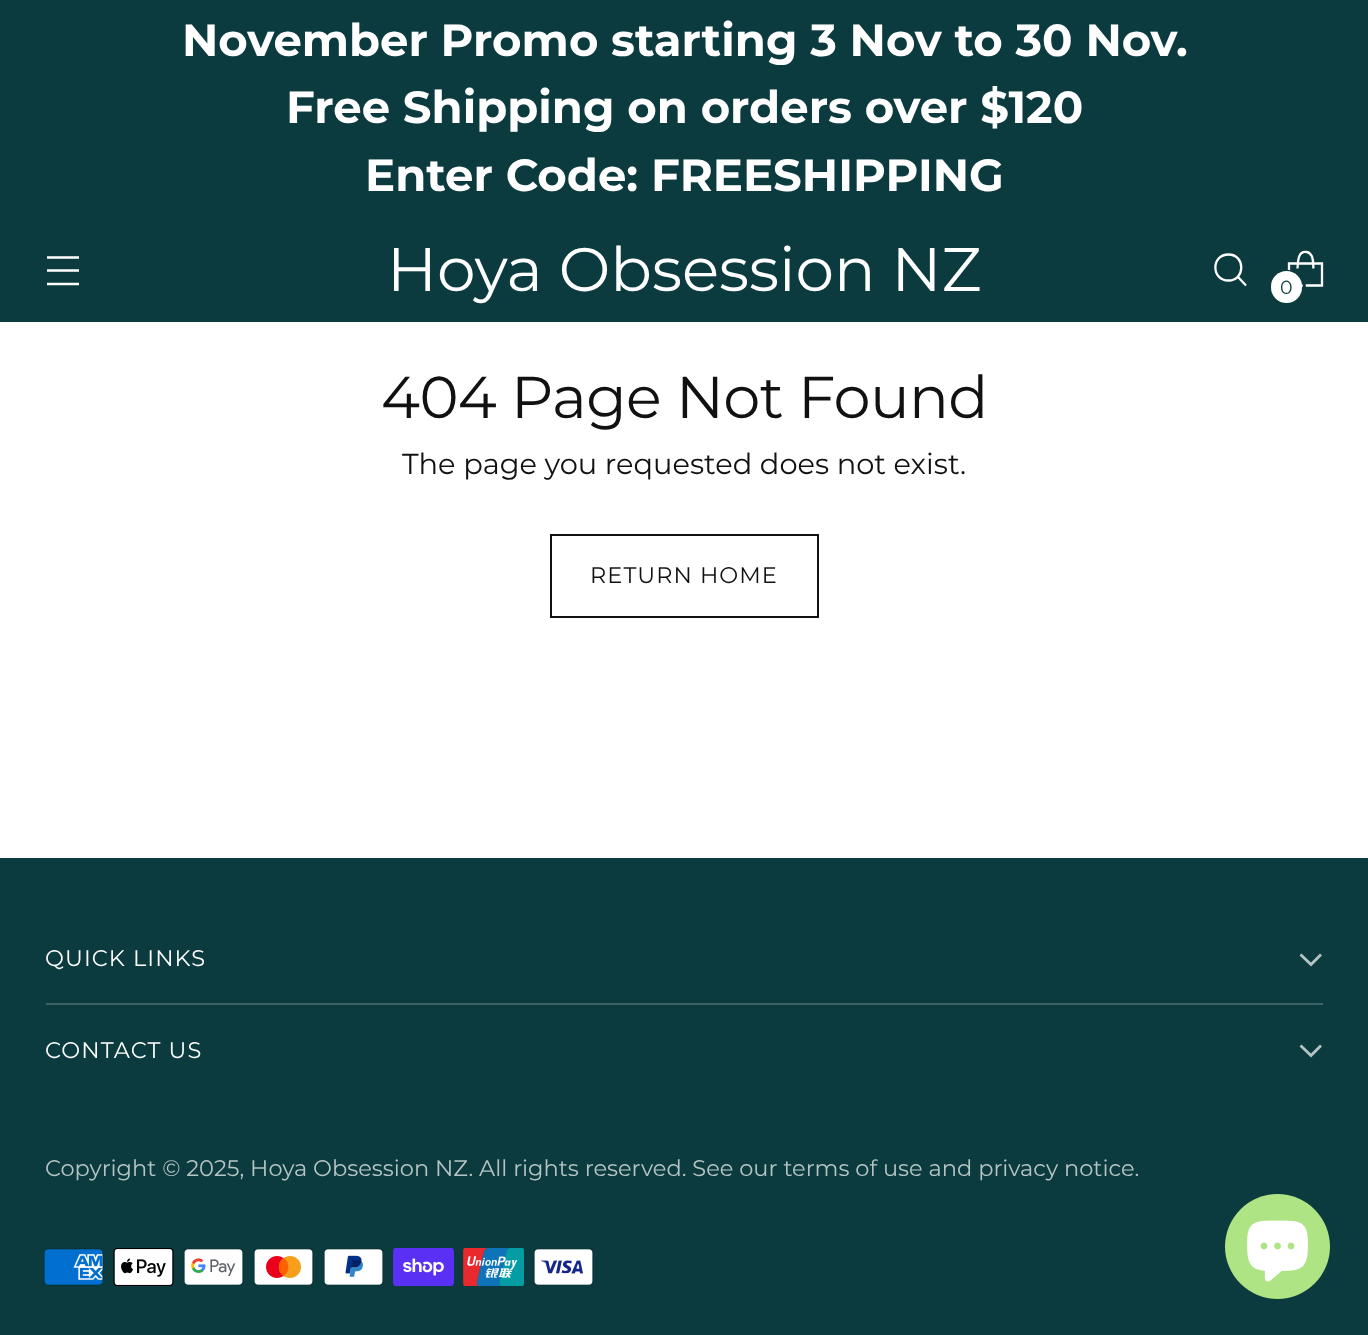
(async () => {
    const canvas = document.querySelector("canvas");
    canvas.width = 1368;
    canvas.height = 1335;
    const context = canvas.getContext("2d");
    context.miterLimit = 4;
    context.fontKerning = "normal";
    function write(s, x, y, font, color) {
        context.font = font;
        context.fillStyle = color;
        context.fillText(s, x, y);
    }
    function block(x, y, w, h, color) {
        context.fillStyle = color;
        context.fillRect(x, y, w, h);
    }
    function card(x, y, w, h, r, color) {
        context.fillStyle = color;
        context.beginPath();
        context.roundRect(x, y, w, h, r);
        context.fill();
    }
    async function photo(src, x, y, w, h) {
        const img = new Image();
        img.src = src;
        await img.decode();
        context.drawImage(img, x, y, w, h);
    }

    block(0, 0, 1368, 1335, "rgb(255, 255, 255)");
    block(0, 0, 1368, 322, "rgb(11, 59, 62)");
    write("November Promo starting 3 Nov to 30 Nov.", 182, 56, "bold 45px Montserrat", "rgb(255, 255, 255)");
    write("Free Shipping on orders over $120", 286, 123, "bold 45px Montserrat", "rgb(255, 255, 255)");
    write("Enter Code: FREESHIPPING", 365, 191, "bold 45px Montserrat", "rgb(255, 255, 255)");
    context.beginPath();
    context.moveTo(47, 270.5);
    context.lineTo(79, 270.5);
    context.moveTo(47, 257.5);
    context.lineTo(79, 257.5);
    context.moveTo(47, 284);
    context.lineTo(79, 284);
    context.strokeStyle = "rgb(255, 255, 255)";
    context.lineWidth = 2.3;
    context.stroke();
    write("Hoya Obsession NZ", 387, 291, "61.4px Montserrat", "rgb(255, 255, 255)");
    context.beginPath();
    context.moveTo(1228.5, 280.5);
    context.bezierCurveTo(1245.5, 280.5, 1245.5, 254.5, 1228.5, 254.5);
    context.bezierCurveTo(1211, 254.5, 1211, 280.5, 1228.5, 280.5);
    context.closePath();
    context.lineCap = "round";
    context.stroke();
    context.beginPath();
    context.moveTo(1238, 277);
    context.lineTo(1246, 285.5);
    context.lineCap = "butt";
    context.stroke();
    context.beginPath();
    context.moveTo(1313.5, 268.5);
    context.bezierCurveTo(1313, 264.5, 1313.5, 260.5, 1312, 256.5);
    context.bezierCurveTo(1311, 254.5, 1309.5, 252.5, 1307, 252);
    context.bezierCurveTo(1297.5, 250, 1298, 262.5, 1297.5, 268.5);
    context.lineJoin = "bevel";
    context.stroke();
    context.beginPath();
    context.moveTo(1322, 285.5);
    context.lineTo(1322, 263.5);
    context.lineTo(1289, 263.5);
    context.lineTo(1289, 285.5);
    context.closePath();
    context.lineJoin = "miter";
    context.stroke();
    context.beginPath();
    context.roundRect(1270.5, 271.5, 34, 33, 16.5);
    context.strokeStyle = "rgb(11, 59, 62)";
    context.lineWidth = 3;
    context.stroke();
    card(1271, 271, 31, 32, 15.5, "rgb(255, 255, 255)");
    write("0", 1280, 294, "19px Montserrat", "rgb(11, 59, 62)");
    context.letterSpacing = "-0.6px";
    write("404 Page Not Found", 381, 418, "59px Montserrat", "rgb(17, 17, 17)");
    context.letterSpacing = "0px";
    write("The page you requested does not exist.", 402, 474, "28.9px Montserrat", "rgb(17, 17, 17)");
    context.strokeStyle = "rgb(17, 17, 17)";
    context.lineWidth = 2;
    context.strokeRect(551, 535, 267, 82);
    context.letterSpacing = "1.1px";
    write("RETURN HOME", 590, 583, "22.5px Montserrat", "rgb(17, 17, 17)");
    block(0, 858, 1368, 477, "rgb(11, 59, 62)");
    block(46, 1003, 1277, 2, "rgb(60, 98, 101)");
    write("QUICK LINKS", 45, 966, "22.5px Montserrat", "rgb(255, 255, 255)");
    context.beginPath();
    context.moveTo(1300.5, 954.5);
    context.lineTo(1311, 964.5);
    context.lineTo(1321, 954.5);
    context.strokeStyle = "rgb(182, 196, 197)";
    context.lineWidth = 2.8;
    context.stroke();
    write("CONTACT US", 45, 1058, "22.5px Montserrat", "rgb(255, 255, 255)");
    context.beginPath();
    context.moveTo(1300.5, 1045.5);
    context.lineTo(1311, 1055.5);
    context.lineTo(1321, 1045.5);
    context.stroke();
    context.letterSpacing = "0px";
    write("Copyright © 2025, Hoya Obsession NZ. All rights reserved. See our terms of use and privacy notice.", 45, 1176, "22.5px Montserrat", "rgb(182, 196, 197)");
    await photo("media/1.png", 43, 1248, 61, 38);
    await photo("media/2.png", 113, 1248, 61, 38);
    await photo("media/3.png", 183, 1248, 61, 38);
    await photo("media/4.png", 253, 1248, 61, 38);
    await photo("media/5.png", 323, 1248, 61, 38);
    await photo("media/6.png", 393, 1248, 61, 38);
    await photo("media/7.png", 463, 1248, 61, 38);
    await photo("media/8.png", 533, 1248, 61, 38);
    context.fillStyle = "rgb(174, 228, 132)";
    context.beginPath();
    context.arc(1277.5, 1246.5, 52.5, 0, Math.PI * 2);
    context.fill();
    await photo("media/9.png", 1247, 1220, 61, 62);
})();
